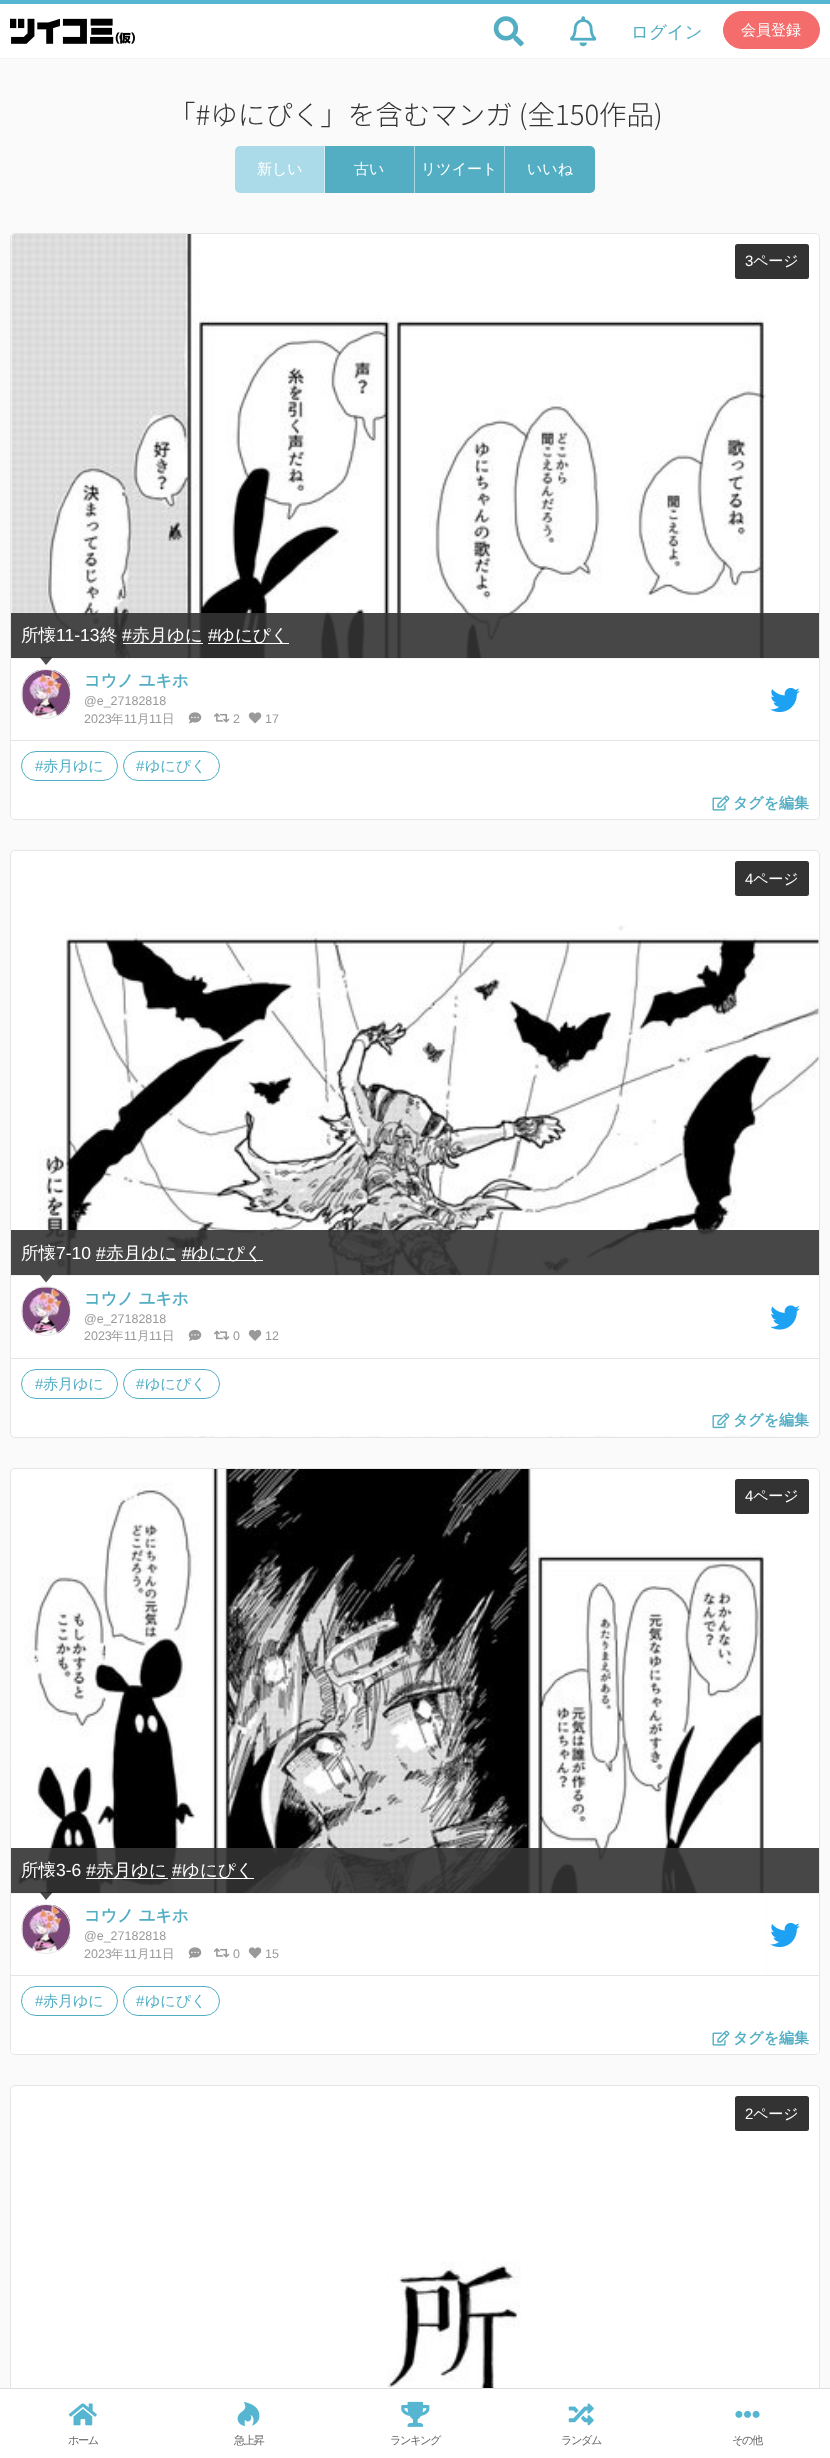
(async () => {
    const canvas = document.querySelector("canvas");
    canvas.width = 830;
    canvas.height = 2458;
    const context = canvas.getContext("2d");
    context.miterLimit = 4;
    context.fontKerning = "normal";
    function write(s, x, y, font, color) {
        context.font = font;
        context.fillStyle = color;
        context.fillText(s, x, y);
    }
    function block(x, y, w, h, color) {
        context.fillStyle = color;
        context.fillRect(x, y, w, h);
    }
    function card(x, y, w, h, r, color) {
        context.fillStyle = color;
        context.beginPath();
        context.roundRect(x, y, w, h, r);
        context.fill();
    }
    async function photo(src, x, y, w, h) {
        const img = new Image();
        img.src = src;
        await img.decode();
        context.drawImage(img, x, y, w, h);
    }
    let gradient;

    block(0, 0, 830, 2458, "rgb(250, 250, 250)");
    block(0, 4, 830, 54, "rgb(255, 255, 255)");
    block(0, 0, 830, 4, "rgb(86, 182, 209)");
    block(0, 58, 830, 1, "rgb(243, 243, 243)");
    await photo("media/1.png", 10, 18, 125, 26);
    await photo("media/2.png", 493, 16, 31, 31);
    await photo("media/3.png", 570, 16, 27, 31);
    write("ログイン", 631, 38, "500 17.5px WenQuanYi Zen Hei", "rgb(83, 174, 196)");
    context.fillStyle = "rgb(245, 108, 108)";
    context.beginPath();
    context.roundRect(723.5, 11.5, 96, 37, 18.5);
    context.fill();
    context.strokeStyle = "rgb(245, 108, 108)";
    context.stroke();
    write("会員登録", 741, 35, "500 15px WenQuanYi Zen Hei", "rgb(255, 255, 255)");
    context.beginPath();
    context.roundRect(10.5, 2085.5, 809, 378, 4.5);
    context.fill();
    context.strokeStyle = "rgb(229, 229, 229)";
    context.stroke();
    card(11, 2086, 808, 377, 5, "rgb(255, 255, 255)");
    block(0, 2389, 830, 69, "rgb(255, 255, 255)");
    block(0, 2388, 830, 1, "rgb(221, 221, 221)");
    await photo("media/4.png", 68, 2403, 29, 23);
    context.letterSpacing = "-1.5px";
    write("ホーム", 68, 2444, "500 11.25px WenQuanYi Zen Hei", "rgb(102, 102, 102)");
    await photo("media/5.png", 237, 2401, 23, 25);
    write("急上昇", 234, 2444, "500 11.25px WenQuanYi Zen Hei", "rgb(102, 102, 102)");
    await photo("media/6.png", 401, 2401, 29, 26);
    write("ランキング", 390, 2444, "500 11.25px WenQuanYi Zen Hei", "rgb(102, 102, 102)");
    await photo("media/7.png", 568, 2403, 26, 23);
    write("ランダム", 561, 2444, "500 11.25px WenQuanYi Zen Hei", "rgb(102, 102, 102)");
    await photo("media/8.png", 735, 2410, 25, 8);
    write("その他", 732, 2444, "500 11.25px WenQuanYi Zen Hei", "rgb(102, 102, 102)");
    context.letterSpacing = "0px";
    write("「#ゆにぴく」を含むマンガ (全150作品)", 168, 125, "300 27.5px Noto Sans CJK JP", "rgb(51, 51, 51)");
    context.fillStyle = "rgb(171, 219, 232)";
    context.beginPath();
    context.roundRect(235, 146, 90, 47, [5, 0, 0, 5]);
    context.fill();
    block(324, 146, 1, 47, "rgb(213, 237, 244)");
    write("新しい", 257, 174, "500 15px WenQuanYi Zen Hei", "rgb(255, 255, 255)");
    block(325, 146, 89, 47, "rgb(83, 174, 196)");
    block(414, 146, 1, 47, "rgb(169, 215, 226)");
    write("古い", 354, 174, "500 15px WenQuanYi Zen Hei", "rgb(255, 255, 255)");
    block(415, 146, 89, 47, "rgb(83, 174, 196)");
    block(504, 146, 1, 47, "rgb(169, 215, 226)");
    write("リツイート", 421, 174, "500 15px WenQuanYi Zen Hei", "rgb(255, 255, 255)");
    context.fillStyle = "rgb(83, 174, 196)";
    context.beginPath();
    context.roundRect(505, 146, 90, 47, [0, 5, 5, 0]);
    context.fill();
    write("いいね", 527, 174, "500 15px WenQuanYi Zen Hei", "rgb(255, 255, 255)");
    context.beginPath();
    context.roundRect(10.5, 233.5, 809, 586, 4.5);
    context.fill();
    context.stroke();
    card(11, 234, 808, 585, 5, "rgb(255, 255, 255)");
    await photo("media/9.png", 11, 234, 756, 585);
    card(735, 244, 74, 35, 2.5, "rgb(51, 51, 51)");
    write("3", 745, 266, "15px Liberation Sans", "rgb(255, 255, 255)");
    write("ページ", 753, 266, "500 15px WenQuanYi Zen Hei", "rgb(255, 255, 255)");
    block(11, 613, 808, 45, "rgba(51, 51, 51, 0.9)");
    write("所懐", 21, 641, "500 17.5px WenQuanYi Zen Hei", "rgb(255, 255, 255)");
    write("11-13", 56, 641, "17.5px Liberation Sans", "rgb(255, 255, 255)");
    write("終", 100, 641, "500 17.5px WenQuanYi Zen Hei", "rgb(255, 255, 255)");
    write("#", 122, 641, "17.5px Liberation Sans", "rgb(255, 255, 255)");
    block(123, 643, 80, 1, "rgb(255, 255, 255)");
    write("赤月ゆに", 132, 641, "500 17.5px WenQuanYi Zen Hei", "rgb(255, 255, 255)");
    write("#", 208, 641, "17.5px Liberation Sans", "rgb(255, 255, 255)");
    block(208, 643, 81, 1, "rgb(255, 255, 255)");
    write("ゆにぴく", 217, 641, "500 17.5px WenQuanYi Zen Hei", "rgb(255, 255, 255)");
    block(11, 659, 753, 81, "rgb(255, 255, 255)");
    block(11, 658, 808, 1, "rgb(243, 243, 243)");
    context.fillStyle = "rgba(0, 0, 0, 0.7)";
    context.beginPath();
    context.moveTo(40, 657.5);
    context.lineTo(52.5, 657.5);
    context.lineTo(46, 665);
    context.closePath();
    context.fill();
    await photo("media/10.png", 22, 670, 48, 48);
    context.beginPath();
    context.arc(46, 694, 24.5, 0, Math.PI * 2);
    context.strokeStyle = "rgb(232, 232, 232)";
    context.stroke();
    write("コウノ ユキホ", 84, 686, "bold 16.25px WenQuanYi Zen Hei", "rgb(83, 174, 196)");
    write("@e_27182818", 84, 705, "12.5px Liberation Sans", "rgb(153, 153, 153)");
    write("2023", 84, 723, "12.5px Liberation Sans", "rgb(153, 153, 153)");
    write("年", 111, 723, "500 12.5px WenQuanYi Zen Hei", "rgb(153, 153, 153)");
    write("11", 124, 723, "12.5px Liberation Sans", "rgb(153, 153, 153)");
    write("月", 137, 723, "500 12.5px WenQuanYi Zen Hei", "rgb(153, 153, 153)");
    write("11", 149, 723, "12.5px Liberation Sans", "rgb(153, 153, 153)");
    write("日", 162, 723, "500 12.5px WenQuanYi Zen Hei", "rgb(153, 153, 153)");
    await photo("media/11.png", 188, 712, 14, 12);
    await photo("media/12.png", 213, 713, 17, 10);
    write("2", 233, 723, "12.5px Liberation Sans", "rgb(153, 153, 153)");
    await photo("media/13.png", 248, 712, 14, 12);
    write("17", 265, 723, "12.5px Liberation Sans", "rgb(153, 153, 153)");
    await photo("media/14.png", 770, 687, 30, 26);
    context.save();
    context.beginPath();
    context.roundRect(11, 234, 808, 585, 4);
    context.clip();
    context.fillStyle = "rgb(255, 255, 255)";
    context.beginPath();
    context.roundRect(11, 740, 808, 79, [0, 0, 5, 5]);
    context.fill();
    context.restore();
    block(11, 740, 808, 1, "rgb(229, 229, 229)");
    context.beginPath();
    context.roundRect(21.5, 751.5, 96, 29, 14.5);
    context.strokeStyle = "rgb(83, 174, 196)";
    context.stroke();
    write("#", 35, 771, "15px Liberation Sans", "rgb(83, 174, 196)");
    write("赤月ゆに", 43, 771, "500 15px WenQuanYi Zen Hei", "rgb(83, 174, 196)");
    context.beginPath();
    context.roundRect(123.5, 751.5, 96, 29, 14.5);
    context.stroke();
    write("#", 136, 771, "15px Liberation Sans", "rgb(83, 174, 196)");
    write("ゆにぴく", 145, 771, "500 15px WenQuanYi Zen Hei", "rgb(83, 174, 196)");
    gradient = context.createLinearGradient(415, 786, 415, 819);
    gradient.addColorStop(0, "rgba(255, 255, 255, 0.7)");
    gradient.addColorStop(1, "rgb(255, 255, 255)");
    context.fillStyle = gradient;
    context.beginPath();
    context.roundRect(11, 786, 808, 33, [0, 0, 4, 4]);
    context.fill();
    await photo("media/15.png", 712, 795, 18, 16);
    write("タグを編集", 733, 808, "bold 15px WenQuanYi Zen Hei", "rgb(83, 174, 196)");
    context.fillStyle = "rgb(255, 255, 255)";
    context.beginPath();
    context.roundRect(10.5, 850.5, 809, 587, 4.5);
    context.fill();
    context.strokeStyle = "rgb(229, 229, 229)";
    context.stroke();
    card(11, 851, 808, 585, 5, "rgb(255, 255, 255)");
    await photo("media/16.png", 11, 925, 808, 512);
    card(735, 861, 74, 35, 2.5, "rgb(51, 51, 51)");
    write("4", 745, 884, "15px Liberation Sans", "rgb(255, 255, 255)");
    write("ページ", 753, 884, "500 15px WenQuanYi Zen Hei", "rgb(255, 255, 255)");
    block(11, 1230, 808, 45, "rgba(51, 51, 51, 0.9)");
    write("所懐", 21, 1259, "500 17.5px WenQuanYi Zen Hei", "rgb(255, 255, 255)");
    write("7-10 #", 56, 1259, "17.5px Liberation Sans", "rgb(255, 255, 255)");
    block(96, 1260, 80, 1, "rgb(255, 255, 255)");
    write("赤月ゆに", 106, 1259, "500 17.5px WenQuanYi Zen Hei", "rgb(255, 255, 255)");
    write("#", 182, 1259, "17.5px Liberation Sans", "rgb(255, 255, 255)");
    block(181, 1260, 82, 1, "rgb(255, 255, 255)");
    write("ゆにぴく", 191, 1259, "500 17.5px WenQuanYi Zen Hei", "rgb(255, 255, 255)");
    block(11, 1276, 808, 82, "rgb(255, 255, 255)");
    block(11, 1275, 808, 1, "rgb(243, 243, 243)");
    context.fillStyle = "rgba(0, 0, 0, 0.7)";
    context.beginPath();
    context.moveTo(40, 1275);
    context.lineTo(52.5, 1275);
    context.lineTo(46, 1282.5);
    context.closePath();
    context.fill();
    await photo("media/17.png", 22, 1287, 48, 48);
    context.beginPath();
    context.arc(46, 1311, 24.5, 0, Math.PI * 2);
    context.strokeStyle = "rgb(232, 232, 232)";
    context.stroke();
    write("コウノ ユキホ", 84, 1304, "bold 16.25px WenQuanYi Zen Hei", "rgb(83, 174, 196)");
    write("@e_27182818", 84, 1323, "12.5px Liberation Sans", "rgb(153, 153, 153)");
    write("2023", 84, 1340, "12.5px Liberation Sans", "rgb(153, 153, 153)");
    write("年", 111, 1340, "500 12.5px WenQuanYi Zen Hei", "rgb(153, 153, 153)");
    write("11", 124, 1340, "12.5px Liberation Sans", "rgb(153, 153, 153)");
    write("月", 137, 1340, "500 12.5px WenQuanYi Zen Hei", "rgb(153, 153, 153)");
    write("11", 149, 1340, "12.5px Liberation Sans", "rgb(153, 153, 153)");
    write("日", 162, 1340, "500 12.5px WenQuanYi Zen Hei", "rgb(153, 153, 153)");
    await photo("media/18.png", 188, 1329, 14, 12);
    await photo("media/19.png", 213, 1330, 17, 10);
    write("0", 233, 1340, "12.5px Liberation Sans", "rgb(153, 153, 153)");
    await photo("media/20.png", 248, 1329, 14, 12);
    write("12", 265, 1340, "12.5px Liberation Sans", "rgb(153, 153, 153)");
    await photo("media/21.png", 770, 1305, 30, 25);
    context.save();
    context.beginPath();
    context.roundRect(11, 851, 808, 585, 4);
    context.clip();
    context.fillStyle = "rgb(255, 255, 255)";
    context.beginPath();
    context.roundRect(11, 1358, 808, 78, [0, 0, 5, 5]);
    context.fill();
    context.restore();
    block(11, 1358, 808, 1, "rgb(229, 229, 229)");
    context.beginPath();
    context.roundRect(21.5, 1369.5, 96, 29, 14.5);
    context.strokeStyle = "rgb(83, 174, 196)";
    context.stroke();
    write("#", 35, 1389, "15px Liberation Sans", "rgb(83, 174, 196)");
    write("赤月ゆに", 43, 1389, "500 15px WenQuanYi Zen Hei", "rgb(83, 174, 196)");
    context.beginPath();
    context.roundRect(123.5, 1369.5, 96, 29, 14.5);
    context.stroke();
    write("#", 136, 1389, "15px Liberation Sans", "rgb(83, 174, 196)");
    write("ゆにぴく", 145, 1389, "500 15px WenQuanYi Zen Hei", "rgb(83, 174, 196)");
    gradient = context.createLinearGradient(415, 1404, 415, 1436);
    gradient.addColorStop(0, "rgba(255, 255, 255, 0.7)");
    gradient.addColorStop(1, "rgb(255, 255, 255)");
    context.fillStyle = gradient;
    context.beginPath();
    context.roundRect(11, 1404, 808, 32, [0, 0, 4, 4]);
    context.fill();
    await photo("media/22.png", 712, 1413, 18, 16);
    write("タグを編集", 733, 1425, "bold 15px WenQuanYi Zen Hei", "rgb(83, 174, 196)");
    context.fillStyle = "rgb(255, 255, 255)";
    context.beginPath();
    context.roundRect(10.5, 1468.5, 809, 586, 4.5);
    context.fill();
    context.strokeStyle = "rgb(229, 229, 229)";
    context.stroke();
    card(11, 1469, 808, 585, 5, "rgb(255, 255, 255)");
    await photo("media/23.png", 11, 1469, 808, 585);
    card(735, 1479, 74, 35, 2.5, "rgb(51, 51, 51)");
    write("4", 745, 1501, "15px Liberation Sans", "rgb(255, 255, 255)");
    write("ページ", 753, 1501, "500 15px WenQuanYi Zen Hei", "rgb(255, 255, 255)");
    block(11, 1848, 808, 45, "rgba(51, 51, 51, 0.9)");
    write("所懐", 21, 1876, "500 17.5px WenQuanYi Zen Hei", "rgb(255, 255, 255)");
    write("3-6 #", 56, 1876, "17.5px Liberation Sans", "rgb(255, 255, 255)");
    block(86, 1878, 82, 1, "rgb(255, 255, 255)");
    write("赤月ゆに", 96, 1876, "500 17.5px WenQuanYi Zen Hei", "rgb(255, 255, 255)");
    write("#", 172, 1876, "17.5px Liberation Sans", "rgb(255, 255, 255)");
    block(171, 1878, 83, 1, "rgb(255, 255, 255)");
    write("ゆにぴく", 182, 1876, "500 17.5px WenQuanYi Zen Hei", "rgb(255, 255, 255)");
    block(38, 1894, 726, 81, "rgb(255, 255, 255)");
    block(11, 1893, 808, 1, "rgb(243, 243, 243)");
    context.fillStyle = "rgba(0, 0, 0, 0.7)";
    context.beginPath();
    context.moveTo(40, 1892.5);
    context.lineTo(52.5, 1892.5);
    context.lineTo(46, 1900);
    context.closePath();
    context.fill();
    await photo("media/10.png", 22, 1905, 48, 48);
    context.beginPath();
    context.arc(46, 1929, 24.5, 0, Math.PI * 2);
    context.strokeStyle = "rgb(232, 232, 232)";
    context.stroke();
    write("コウノ ユキホ", 84, 1921, "bold 16.25px WenQuanYi Zen Hei", "rgb(83, 174, 196)");
    write("@e_27182818", 84, 1940, "12.5px Liberation Sans", "rgb(153, 153, 153)");
    write("2023", 84, 1958, "12.5px Liberation Sans", "rgb(153, 153, 153)");
    write("年", 111, 1958, "500 12.5px WenQuanYi Zen Hei", "rgb(153, 153, 153)");
    write("11", 124, 1958, "12.5px Liberation Sans", "rgb(153, 153, 153)");
    write("月", 137, 1958, "500 12.5px WenQuanYi Zen Hei", "rgb(153, 153, 153)");
    write("11", 149, 1958, "12.5px Liberation Sans", "rgb(153, 153, 153)");
    write("日", 162, 1958, "500 12.5px WenQuanYi Zen Hei", "rgb(153, 153, 153)");
    await photo("media/11.png", 188, 1947, 14, 12);
    await photo("media/12.png", 213, 1948, 17, 10);
    write("0", 233, 1958, "12.5px Liberation Sans", "rgb(153, 153, 153)");
    await photo("media/13.png", 248, 1947, 14, 12);
    write("15", 265, 1958, "12.5px Liberation Sans", "rgb(153, 153, 153)");
    await photo("media/14.png", 770, 1922, 30, 26);
    context.save();
    context.beginPath();
    context.roundRect(11, 1469, 808, 585, 4);
    context.clip();
    context.fillStyle = "rgb(255, 255, 255)";
    context.beginPath();
    context.roundRect(11, 1975, 808, 79, [0, 0, 5, 5]);
    context.fill();
    context.restore();
    block(11, 1975, 808, 1, "rgb(229, 229, 229)");
    context.beginPath();
    context.roundRect(21.5, 1986.5, 96, 29, 14.5);
    context.strokeStyle = "rgb(83, 174, 196)";
    context.stroke();
    write("#", 35, 2006, "15px Liberation Sans", "rgb(83, 174, 196)");
    write("赤月ゆに", 43, 2006, "500 15px WenQuanYi Zen Hei", "rgb(83, 174, 196)");
    context.beginPath();
    context.roundRect(123.5, 1986.5, 96, 29, 14.5);
    context.stroke();
    write("#", 136, 2006, "15px Liberation Sans", "rgb(83, 174, 196)");
    write("ゆにぴく", 145, 2006, "500 15px WenQuanYi Zen Hei", "rgb(83, 174, 196)");
    gradient = context.createLinearGradient(415, 2021, 415, 2054);
    gradient.addColorStop(0, "rgba(255, 255, 255, 0.7)");
    gradient.addColorStop(1, "rgb(255, 255, 255)");
    context.fillStyle = gradient;
    context.beginPath();
    context.roundRect(11, 2021, 808, 33, [0, 0, 4, 4]);
    context.fill();
    await photo("media/15.png", 712, 2030, 18, 16);
    write("タグを編集", 733, 2043, "bold 15px WenQuanYi Zen Hei", "rgb(83, 174, 196)");
    await photo("media/24.png", 387, 2261, 134, 127);
    card(735, 2096, 74, 35, 2.5, "rgb(51, 51, 51)");
    write("2", 745, 2119, "15px Liberation Sans", "rgb(255, 255, 255)");
    write("ページ", 753, 2119, "500 15px WenQuanYi Zen Hei", "rgb(255, 255, 255)");
})();
